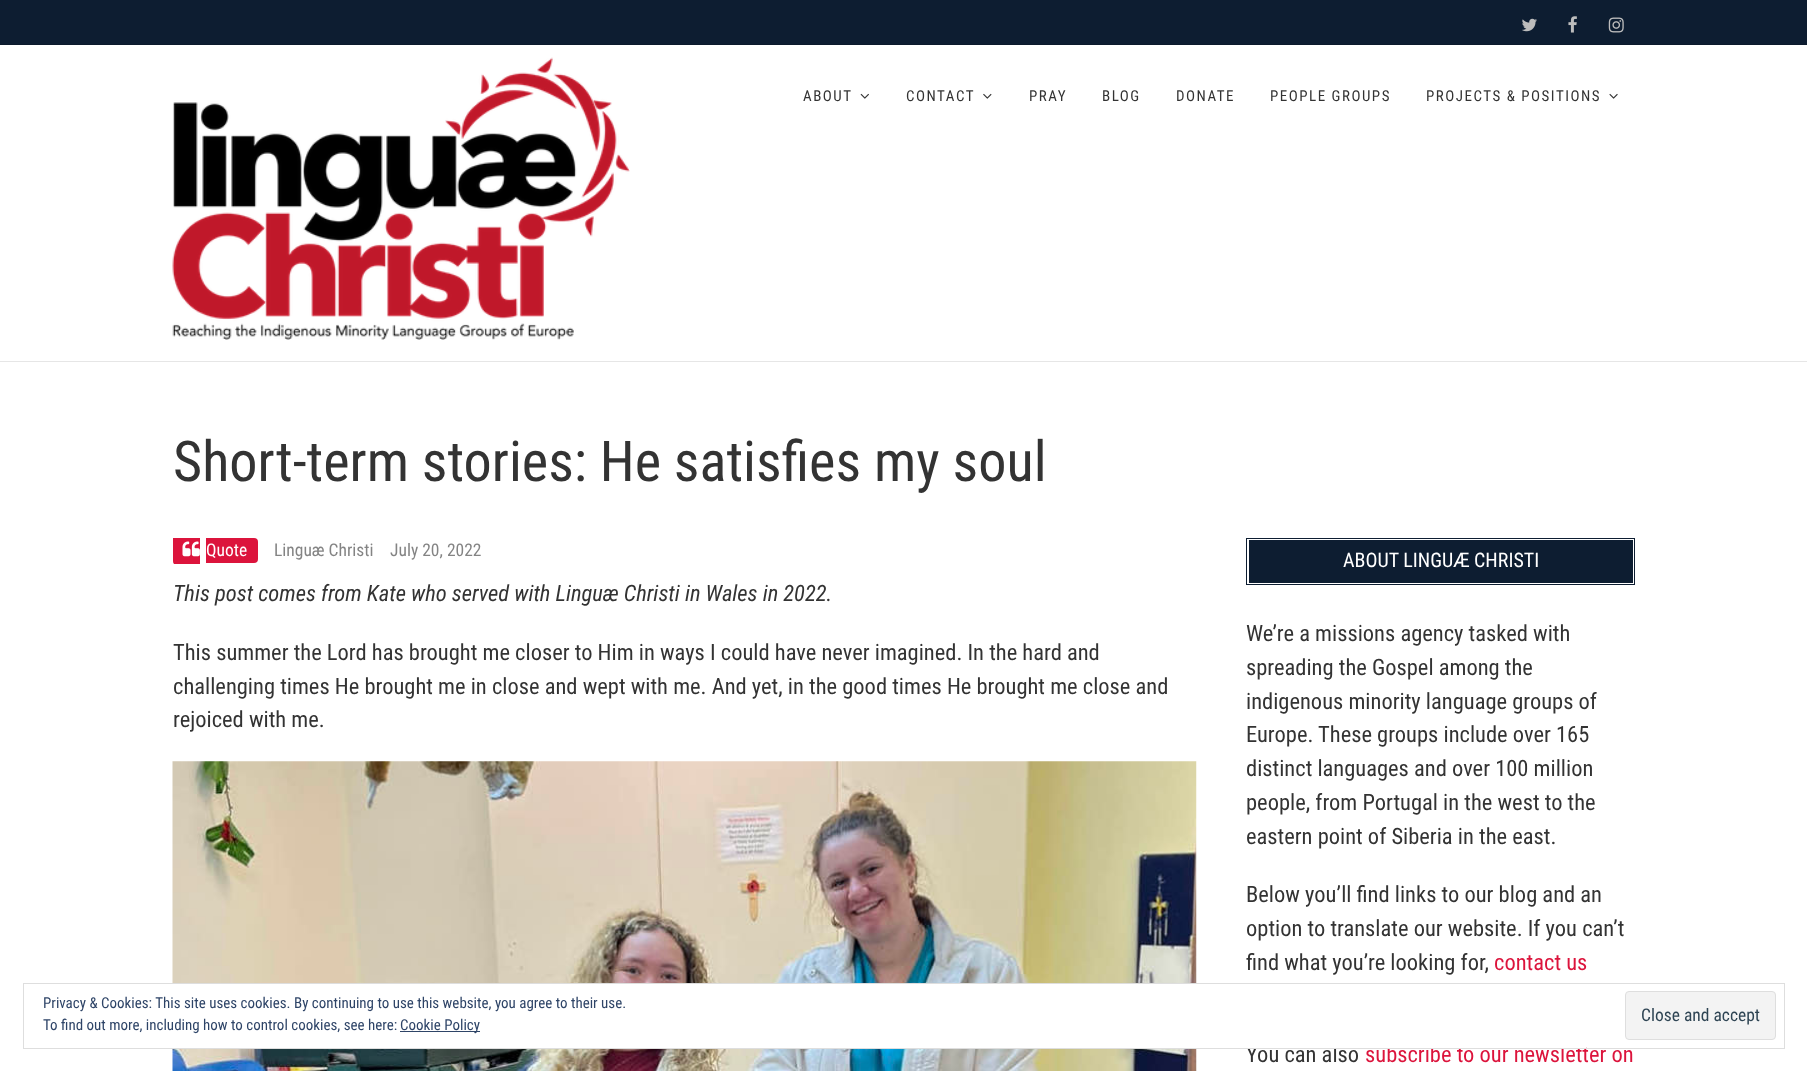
(async () => {
    const canvas = document.querySelector("canvas");
    canvas.width = 1807;
    canvas.height = 1071;
    const context = canvas.getContext("2d");
    context.miterLimit = 4;
    context.fontKerning = "normal";
    function write(s, x, y, font, color) {
        context.font = font;
        context.fillStyle = color;
        context.fillText(s, x, y);
    }
    function block(x, y, w, h, color) {
        context.fillStyle = color;
        context.fillRect(x, y, w, h);
    }
    async function photo(src, x, y, w, h) {
        const img = new Image();
        img.src = src;
        await img.decode();
        context.drawImage(img, x, y, w, h);
    }

    block(0, 0, 1807, 1071, "rgb(255, 255, 255)");
    block(0, 0, 1807, 44, "rgb(13, 29, 49)");
    block(0, 44, 1807, 1, "rgb(12, 26, 44)");
    await photo("media/1.png", 1522, 18, 15, 14);
    await photo("media/2.png", 1568, 16, 9, 17);
    await photo("media/3.png", 1608, 17, 16, 16);
    block(0, 361, 1807, 1, "rgb(230, 230, 230)");
    await photo("media/4.png", 172, 57, 458, 283);
    context.letterSpacing = "1.5px";
    write("ABOUT", 803, 101, "15px Roboto Condensed", "rgb(51, 51, 51)");
    await photo("media/5.png", 860, 93, 9, 6);
    write("CONTACT", 906, 101, "15px Roboto Condensed", "rgb(51, 51, 51)");
    await photo("media/6.png", 983, 93, 9, 6);
    write("PRAY", 1029, 101, "15px Roboto Condensed", "rgb(51, 51, 51)");
    write("BLOG", 1102, 101, "15px Roboto Condensed", "rgb(51, 51, 51)");
    write("DONATE", 1176, 101, "15px Roboto Condensed", "rgb(51, 51, 51)");
    write("PEOPLE GROUPS", 1270, 101, "15px Roboto Condensed", "rgb(51, 51, 51)");
    write("PROJECTS & POSITIONS", 1426, 101, "15px Roboto Condensed", "rgb(51, 51, 51)");
    await photo("media/7.png", 1609, 93, 9, 6);
    context.letterSpacing = "0px";
    write("Short-term stories: He satisfies my soul", 173, 481, "56.25px Roboto Condensed", "rgb(51, 51, 51)");
    context.save();
    context.beginPath();
    context.rect(173, 538, 1023, 26);
    context.clip();
    context.fillStyle = "rgb(220, 20, 60)";
    context.beginPath();
    context.roundRect(173, 535, 27, 30, [4, 0, 0, 4]);
    context.fill();
    context.restore();
    context.fillStyle = "rgb(220, 20, 60)";
    context.beginPath();
    context.roundRect(206, 538, 52, 25, [0, 4, 4, 0]);
    context.fill();
    await photo("media/8.png", 182, 541, 18, 16);
    write("Quote", 206, 556, "17.5px Roboto Condensed", "rgb(255, 255, 255)");
    write("Linguæ Christi", 274, 556, "17.5px Roboto Condensed", "rgb(132, 132, 132)");
    write("July 20, 2022", 390, 556, "17.5px Roboto Condensed", "rgb(132, 132, 132)");
    write("This post comes from Kate who served with Linguæ Christi in Wales in 2022.", 173, 601, "italic 22.5px Roboto Condensed", "rgb(51, 51, 51)");
    write("This summer the Lord has brought me closer to Him in ways I could have never imagined. In the hard and", 173, 660, "22.5px Roboto Condensed", "rgb(51, 51, 51)");
    write("challenging times He brought me in close and wept with me. And yet, in the good times He brought me close and", 173, 694, "22.5px Roboto Condensed", "rgb(51, 51, 51)");
    write("rejoiced with me.", 173, 727, "22.5px Roboto Condensed", "rgb(51, 51, 51)");
    await photo("media/9.png", 172, 761, 1025, 310);
    block(1249, 540, 384, 43, "rgb(13, 29, 49)");
    context.strokeStyle = "rgb(13, 29, 49)";
    context.strokeRect(1246.5, 538.5, 388, 46);
    write("ABOUT LINGUÆ CHRISTI", 1343, 567, "20px Roboto Condensed", "rgb(255, 255, 255)");
    write("We’re a missions agency tasked with", 1246, 641, "22.5px Roboto Condensed", "rgb(51, 51, 51)");
    write("spreading the Gospel among the", 1246, 675, "22.5px Roboto Condensed", "rgb(51, 51, 51)");
    write("indigenous minority language groups of", 1246, 709, "22.5px Roboto Condensed", "rgb(51, 51, 51)");
    write("Europe. These groups include over 165", 1246, 742, "22.5px Roboto Condensed", "rgb(51, 51, 51)");
    write("distinct languages and over 100 million", 1246, 776, "22.5px Roboto Condensed", "rgb(51, 51, 51)");
    write("people, from Portugal in the west to the", 1246, 810, "22.5px Roboto Condensed", "rgb(51, 51, 51)");
    write("eastern point of Siberia in the east.", 1246, 844, "22.5px Roboto Condensed", "rgb(51, 51, 51)");
    write("Below you’ll find links to our blog and an", 1246, 902, "22.5px Roboto Condensed", "rgb(51, 51, 51)");
    write("option to translate our website. If you can’t", 1246, 936, "22.5px Roboto Condensed", "rgb(51, 51, 51)");
    write("find what you’re looking for,", 1246, 970, "22.5px Roboto Condensed", "rgb(51, 51, 51)");
    write("contact us", 1494, 970, "22.5px Roboto Condensed", "rgb(220, 20, 60)");
    write("You can also", 1246, 1062, "22.5px Roboto Condensed", "rgb(51, 51, 51)");
    write("subscribe to our newsletter on", 1365, 1062, "22.5px Roboto Condensed", "rgb(220, 20, 60)");
    block(172, 984, 1414, 64, "rgb(255, 255, 255)");
    context.strokeStyle = "rgb(222, 222, 222)";
    context.strokeRect(23.5, 983.5, 1761, 65);
    write("Privacy & Cookies: This site uses cookies. By continuing to use this website, you agree to their use.", 43, 1008, "15px Roboto Condensed", "rgb(46, 68, 103)");
    write("To find out more, including how to control cookies, see here:", 43, 1030, "15px Roboto Condensed", "rgb(46, 68, 103)");
    block(400, 1031, 80, 1, "rgb(46, 68, 103)");
    write("Cookie Policy", 400, 1030, "15px Roboto Condensed", "rgb(46, 68, 103)");
    context.fillStyle = "rgb(243, 243, 243)";
    context.beginPath();
    context.roundRect(1625.5, 991.5, 150, 48, 3.5);
    context.fill();
    context.stroke();
    write("Close and accept", 1641, 1021, "17.5px Roboto Condensed", "rgb(46, 68, 83)");
})();
